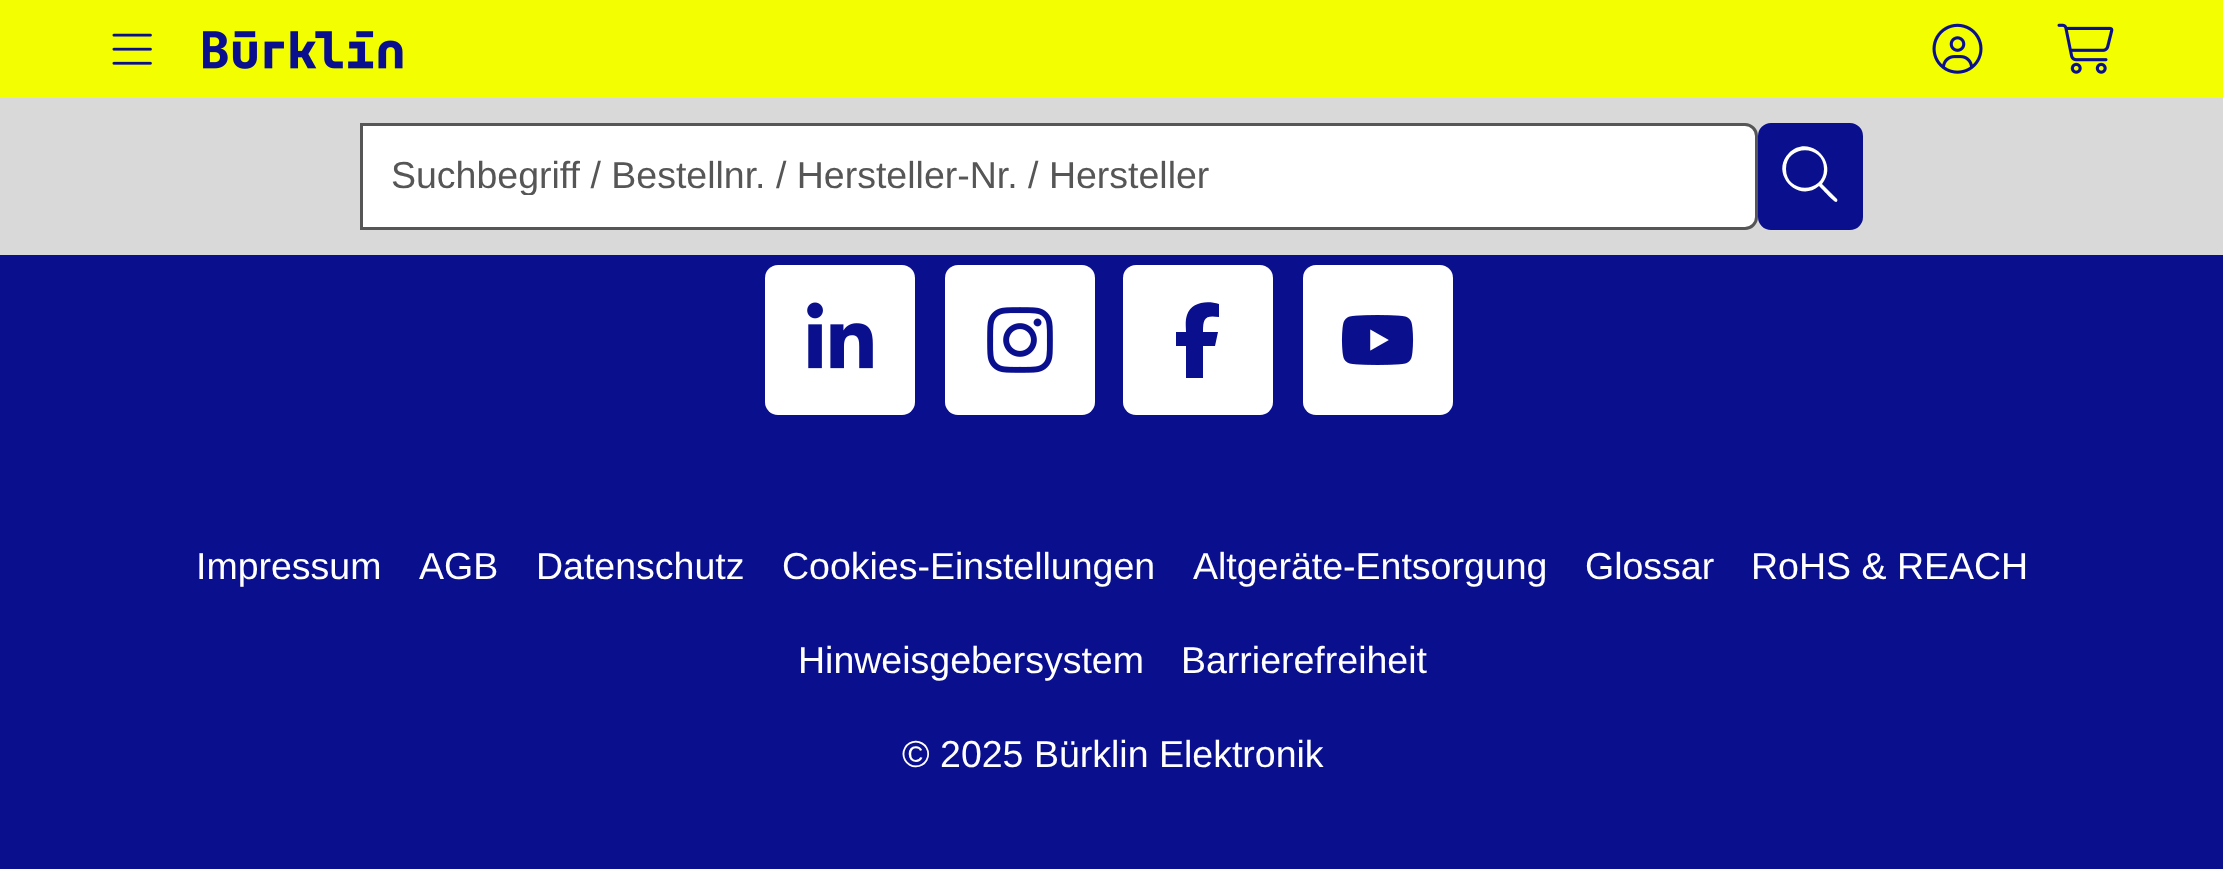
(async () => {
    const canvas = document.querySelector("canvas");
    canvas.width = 2223;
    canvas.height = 869;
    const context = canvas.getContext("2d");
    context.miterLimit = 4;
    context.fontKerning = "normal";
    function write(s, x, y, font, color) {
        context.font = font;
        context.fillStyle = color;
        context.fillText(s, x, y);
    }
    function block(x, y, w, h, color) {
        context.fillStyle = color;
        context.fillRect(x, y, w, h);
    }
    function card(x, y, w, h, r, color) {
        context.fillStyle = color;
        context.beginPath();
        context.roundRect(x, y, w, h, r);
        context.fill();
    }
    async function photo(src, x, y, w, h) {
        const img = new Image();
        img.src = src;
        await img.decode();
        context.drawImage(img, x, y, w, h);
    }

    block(0, 0, 2223, 869, "rgb(10, 16, 141)");
    block(0, 0, 2223, 98, "rgb(243, 255, 0)");
    await photo("media/1.png", 112, 33, 40, 32);
    await photo("media/2.png", 203, 31, 200, 38);
    await photo("media/3.png", 1932, 23, 51, 51);
    await photo("media/4.png", 2057, 23, 57, 51);
    block(0, 98, 2223, 157, "rgb(217, 217, 217)");
    context.fillStyle = "rgb(255, 255, 255)";
    context.beginPath();
    context.roundRect(361.5, 124.5, 1395, 104, [0, 11.5, 11.5, 0]);
    context.fill();
    context.strokeStyle = "rgb(86, 86, 86)";
    context.lineWidth = 3;
    context.stroke();
    context.save();
    context.beginPath();
    context.rect(390, 153, 1300, 42);
    context.clip();
    write("Suchbegriff / Bestellnr. / Hersteller-Nr. / Hersteller", 391, 188, "37.5px Liberation Sans", "rgb(86, 86, 86)");
    context.restore();
    context.fillStyle = "rgb(10, 16, 141)";
    context.beginPath();
    context.roundRect(1759.5, 124.5, 102, 104, 11.5);
    context.fill();
    context.strokeStyle = "rgb(10, 16, 141)";
    context.stroke();
    context.fillStyle = "rgb(255, 255, 255)";
    context.beginPath();
    context.moveTo(1824, 169);
    context.bezierCurveTo(1824, 144, 1786, 144, 1786, 169);
    context.bezierCurveTo(1786, 194, 1824, 194, 1824, 169);
    context.closePath();
    context.moveTo(1819, 186);
    context.bezierCurveTo(1798, 204, 1769, 173, 1789, 153);
    context.bezierCurveTo(1809, 133, 1840, 162, 1822, 184);
    context.lineTo(1837, 199);
    context.bezierCurveTo(1838, 200, 1837, 202, 1836, 202);
    context.bezierCurveTo(1834, 202, 1821, 188, 1819, 186);
    context.closePath();
    context.fill();
    card(765, 265, 150, 150, 13, "rgb(255, 255, 255)");
    await photo("media/5.png", 807, 302, 66, 67);
    card(945, 265, 150, 150, 13, "rgb(255, 255, 255)");
    await photo("media/6.png", 987, 307, 66, 66);
    card(1123, 265, 150, 150, 13, "rgb(255, 255, 255)");
    context.fillStyle = "rgb(10, 16, 141)";
    context.beginPath();
    context.moveTo(1186, 346);
    context.lineTo(1186, 378);
    context.lineTo(1203, 378);
    context.lineTo(1203, 346);
    context.lineTo(1215, 346);
    context.lineTo(1218, 332);
    context.lineTo(1203, 332);
    context.bezierCurveTo(1203, 318, 1205, 315, 1219, 317);
    context.lineTo(1219, 304);
    context.bezierCurveTo(1207, 300, 1191, 302, 1187, 315);
    context.bezierCurveTo(1185, 321, 1186, 326, 1186, 332);
    context.lineTo(1176, 332);
    context.lineTo(1176, 346);
    context.closePath();
    context.fill();
    card(1303, 265, 150, 150, 13, "rgb(255, 255, 255)");
    await photo("media/7.png", 1341, 315, 73, 50);
    write("Impressum", 196, 579, "37.5px Liberation Sans", "rgb(255, 255, 255)");
    write("AGB", 419, 579, "37.5px Liberation Sans", "rgb(255, 255, 255)");
    write("Datenschutz", 536, 579, "37.5px Liberation Sans", "rgb(255, 255, 255)");
    write("Cookies-Einstellungen", 782, 579, "37.5px Liberation Sans", "rgb(255, 255, 255)");
    write("Altgeräte-Entsorgung", 1193, 579, "37.5px Liberation Sans", "rgb(255, 255, 255)");
    write("Glossar", 1585, 579, "37.5px Liberation Sans", "rgb(255, 255, 255)");
    write("RoHS & REACH", 1751, 579, "37.5px Liberation Sans", "rgb(255, 255, 255)");
    write("Hinweisgebersystem", 798, 673, "37.5px Liberation Sans", "rgb(255, 255, 255)");
    write("Barrierefreiheit", 1181, 673, "37.5px Liberation Sans", "rgb(255, 255, 255)");
    write("© 2025 Bürklin Elektronik", 902, 767, "37.5px Liberation Sans", "rgb(255, 255, 255)");
})();
